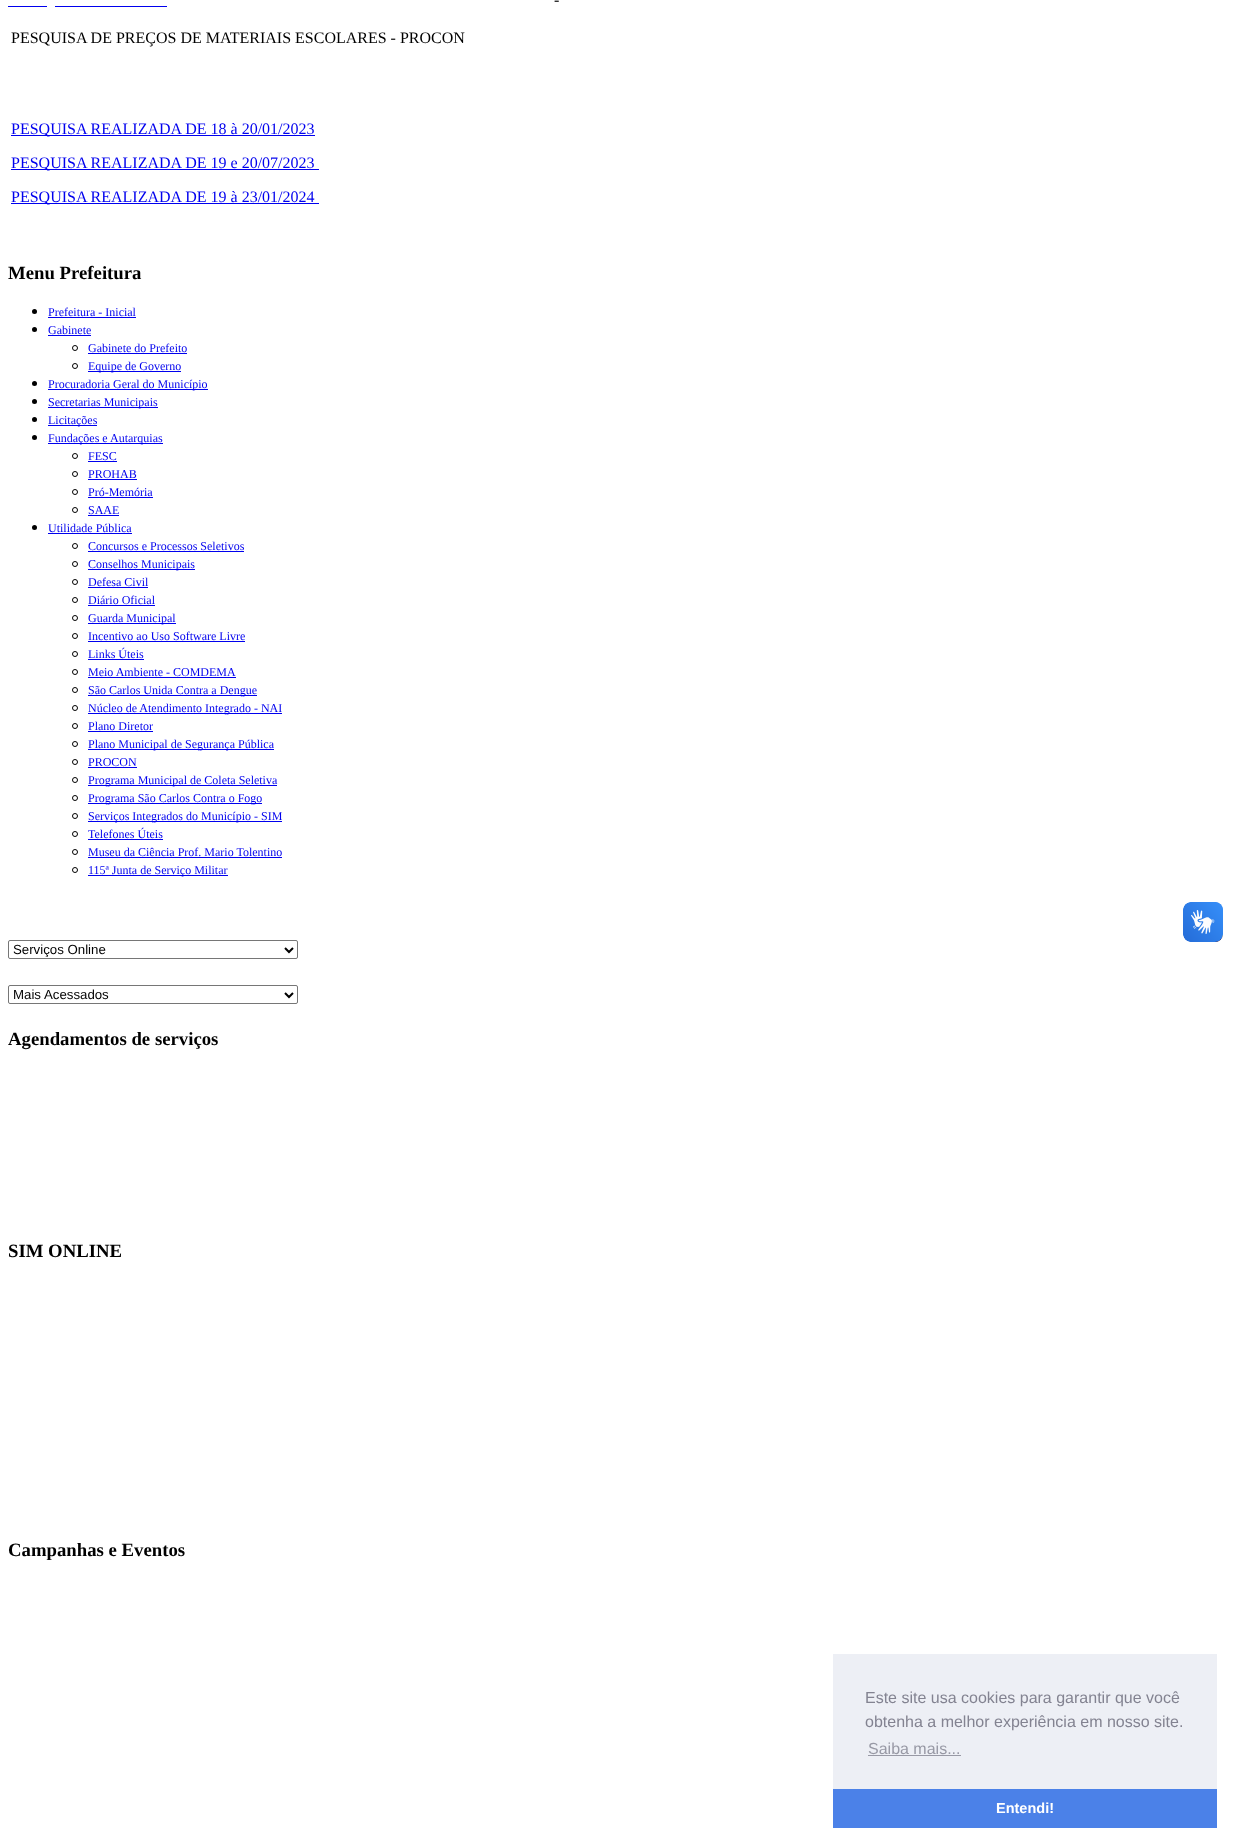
(async () => {
    const canvas = document.querySelector("canvas");
    canvas.width = 1233;
    canvas.height = 1844;
    const context = canvas.getContext("2d");
    context.miterLimit = 4;
    context.fontKerning = "normal";
    function write(s, x, y, font, color) {
        context.font = font;
        context.fillStyle = color;
        context.fillText(s, x, y);
    }
    function block(x, y, w, h, color) {
        context.fillStyle = color;
        context.fillRect(x, y, w, h);
    }
    async function photo(src, x, y, w, h) {
        const img = new Image();
        img.src = src;
        await img.decode();
        context.drawImage(img, x, y, w, h);
    }

    block(0, 0, 1233, 1844, "rgb(255, 255, 255)");
    write("-", 554, 5, "16px Liberation Serif", "rgb(0, 0, 0)");
    block(8, 6, 39, 1, "rgb(0, 0, 238)");
    block(55, 6, 112, 1, "rgb(0, 0, 238)");
    write("PESQUISA DE PREÇOS DE MATERIAIS ESCOLARES - PROCON", 11, 43, "16px Liberation Serif", "rgb(0, 0, 0)");
    block(11, 135, 304, 1, "rgb(0, 0, 238)");
    write("PESQUISA REALIZADA DE 18 à 20/01/2023", 11, 134, "16px Liberation Serif", "rgb(0, 0, 238)");
    block(11, 169, 308, 1, "rgb(0, 0, 238)");
    write("PESQUISA REALIZADA DE 19 e 20/07/2023", 11, 168, "16px Liberation Serif", "rgb(0, 0, 238)");
    block(11, 203, 308, 1, "rgb(0, 0, 238)");
    write("PESQUISA REALIZADA DE 19 à 23/01/2024", 11, 202, "16px Liberation Serif", "rgb(0, 0, 238)");
    write("Menu Prefeitura", 8, 279, "bold 18.75px Liberation Serif", "rgb(0, 0, 0)");
    context.beginPath();
    context.arc(34.5, 311.5, 2.5, 0, Math.PI * 2);
    context.fill();
    write("Prefeitura - Inicial", 48, 316, "12px Liberation Serif", "rgb(0, 0, 238)");
    block(48, 317, 88, 1, "rgb(0, 0, 238)");
    context.fillStyle = "rgb(0, 0, 0)";
    context.beginPath();
    context.arc(34.5, 329.5, 2.5, 0, Math.PI * 2);
    context.fill();
    write("Gabinete", 48, 334, "12px Liberation Serif", "rgb(0, 0, 238)");
    block(48, 335, 43, 1, "rgb(0, 0, 238)");
    context.beginPath();
    context.arc(75, 348, 2.5, 0, Math.PI * 2);
    context.strokeStyle = "rgb(0, 0, 0)";
    context.stroke();
    write("Gabinete do Prefeito", 88, 352, "12px Liberation Serif", "rgb(0, 0, 238)");
    block(88, 353, 99, 1, "rgb(0, 0, 238)");
    context.beginPath();
    context.arc(75, 366, 2.5, 0, Math.PI * 2);
    context.stroke();
    block(88, 371, 93, 1, "rgb(0, 0, 238)");
    write("Equipe de Governo", 88, 370, "12px Liberation Serif", "rgb(0, 0, 238)");
    context.fillStyle = "rgb(0, 0, 0)";
    context.beginPath();
    context.arc(34.5, 383.5, 2.5, 0, Math.PI * 2);
    context.fill();
    block(48, 389, 160, 1, "rgb(0, 0, 238)");
    write("Procuradoria Geral do Município", 48, 388, "12px Liberation Serif", "rgb(0, 0, 238)");
    context.fillStyle = "rgb(0, 0, 0)";
    context.beginPath();
    context.arc(34.5, 401.5, 2.5, 0, Math.PI * 2);
    context.fill();
    block(48, 407, 110, 1, "rgb(0, 0, 238)");
    write("Secretarias Municipais", 48, 406, "12px Liberation Serif", "rgb(0, 0, 238)");
    context.fillStyle = "rgb(0, 0, 0)";
    context.beginPath();
    context.arc(34.5, 419.5, 2.5, 0, Math.PI * 2);
    context.fill();
    block(48, 425, 49, 1, "rgb(0, 0, 238)");
    write("Licitações", 48, 424, "12px Liberation Serif", "rgb(0, 0, 238)");
    context.fillStyle = "rgb(0, 0, 0)";
    context.beginPath();
    context.arc(34.5, 437.5, 2.5, 0, Math.PI * 2);
    context.fill();
    block(48, 443, 115, 1, "rgb(0, 0, 238)");
    write("Fundações e Autarquias", 48, 442, "12px Liberation Serif", "rgb(0, 0, 238)");
    context.beginPath();
    context.arc(75, 456, 2.5, 0, Math.PI * 2);
    context.stroke();
    write("FESC", 88, 460, "12px Liberation Serif", "rgb(0, 0, 238)");
    block(88, 461, 29, 1, "rgb(0, 0, 238)");
    context.beginPath();
    context.arc(75, 474, 2.5, 0, Math.PI * 2);
    context.stroke();
    write("PROHAB", 88, 478, "12px Liberation Serif", "rgb(0, 0, 238)");
    block(88, 479, 49, 1, "rgb(0, 0, 238)");
    context.beginPath();
    context.arc(75, 492, 2.5, 0, Math.PI * 2);
    context.stroke();
    write("Pró-Memória", 88, 496, "12px Liberation Serif", "rgb(0, 0, 238)");
    block(88, 497, 65, 1, "rgb(0, 0, 238)");
    context.beginPath();
    context.arc(75, 510, 2.5, 0, Math.PI * 2);
    context.stroke();
    write("SAAE", 88, 514, "12px Liberation Serif", "rgb(0, 0, 238)");
    block(88, 515, 31, 1, "rgb(0, 0, 238)");
    context.fillStyle = "rgb(0, 0, 0)";
    context.beginPath();
    context.arc(34.5, 527.5, 2.5, 0, Math.PI * 2);
    context.fill();
    write("Utilidade Pública", 48, 532, "12px Liberation Serif", "rgb(0, 0, 238)");
    block(48, 533, 84, 1, "rgb(0, 0, 238)");
    context.beginPath();
    context.arc(75, 546, 2.5, 0, Math.PI * 2);
    context.stroke();
    write("Concursos e Processos Seletivos", 88, 550, "12px Liberation Serif", "rgb(0, 0, 238)");
    block(88, 551, 156, 1, "rgb(0, 0, 238)");
    context.beginPath();
    context.arc(75, 564, 2.5, 0, Math.PI * 2);
    context.stroke();
    block(88, 569, 107, 1, "rgb(0, 0, 238)");
    write("Conselhos Municipais", 88, 568, "12px Liberation Serif", "rgb(0, 0, 238)");
    context.beginPath();
    context.arc(75, 582, 2.5, 0, Math.PI * 2);
    context.stroke();
    write("Defesa Civil", 88, 586, "12px Liberation Serif", "rgb(0, 0, 238)");
    block(88, 587, 60, 1, "rgb(0, 0, 238)");
    context.beginPath();
    context.arc(75, 600, 2.5, 0, Math.PI * 2);
    context.stroke();
    write("Diário Oficial", 88, 604, "12px Liberation Serif", "rgb(0, 0, 238)");
    block(88, 605, 67, 1, "rgb(0, 0, 238)");
    context.beginPath();
    context.arc(75, 618, 2.5, 0, Math.PI * 2);
    context.stroke();
    block(88, 623, 88, 1, "rgb(0, 0, 238)");
    write("Guarda Municipal", 88, 622, "12px Liberation Serif", "rgb(0, 0, 238)");
    context.beginPath();
    context.arc(75, 636, 2.5, 0, Math.PI * 2);
    context.stroke();
    write("Incentivo ao Uso Software Livre", 88, 640, "12px Liberation Serif", "rgb(0, 0, 238)");
    block(88, 641, 157, 1, "rgb(0, 0, 238)");
    context.beginPath();
    context.arc(75, 654, 2.5, 0, Math.PI * 2);
    context.stroke();
    write("Links Úteis", 88, 658, "12px Liberation Serif", "rgb(0, 0, 238)");
    block(88, 659, 56, 1, "rgb(0, 0, 238)");
    context.beginPath();
    context.arc(75, 672, 2.5, 0, Math.PI * 2);
    context.stroke();
    write("Meio Ambiente - COMDEMA", 88, 676, "12px Liberation Serif", "rgb(0, 0, 238)");
    block(88, 677, 148, 1, "rgb(0, 0, 238)");
    context.beginPath();
    context.arc(75, 690, 2.5, 0, Math.PI * 2);
    context.stroke();
    block(88, 695, 169, 1, "rgb(0, 0, 238)");
    write("São Carlos Unida Contra a Dengue", 88, 694, "12px Liberation Serif", "rgb(0, 0, 238)");
    context.beginPath();
    context.arc(75, 708, 2.5, 0, Math.PI * 2);
    context.stroke();
    block(88, 713, 194, 1, "rgb(0, 0, 238)");
    write("Núcleo de Atendimento Integrado - NAI", 88, 712, "12px Liberation Serif", "rgb(0, 0, 238)");
    context.beginPath();
    context.arc(75, 726, 2.5, 0, Math.PI * 2);
    context.stroke();
    write("Plano Diretor", 88, 730, "12px Liberation Serif", "rgb(0, 0, 238)");
    block(88, 731, 65, 1, "rgb(0, 0, 238)");
    context.beginPath();
    context.arc(75, 744, 2.5, 0, Math.PI * 2);
    context.stroke();
    block(88, 749, 186, 1, "rgb(0, 0, 238)");
    write("Plano Municipal de Segurança Pública", 88, 748, "12px Liberation Serif", "rgb(0, 0, 238)");
    context.beginPath();
    context.arc(75, 762, 2.5, 0, Math.PI * 2);
    context.stroke();
    write("PROCON", 88, 766, "12px Liberation Serif", "rgb(0, 0, 238)");
    block(88, 767, 49, 1, "rgb(0, 0, 238)");
    context.beginPath();
    context.arc(75, 780, 2.5, 0, Math.PI * 2);
    context.stroke();
    block(88, 785, 189, 1, "rgb(0, 0, 238)");
    write("Programa Municipal de Coleta Seletiva", 88, 784, "12px Liberation Serif", "rgb(0, 0, 238)");
    context.beginPath();
    context.arc(75, 798, 2.5, 0, Math.PI * 2);
    context.stroke();
    block(88, 803, 174, 1, "rgb(0, 0, 238)");
    write("Programa São Carlos Contra o Fogo", 88, 802, "12px Liberation Serif", "rgb(0, 0, 238)");
    context.beginPath();
    context.arc(75, 816, 2.5, 0, Math.PI * 2);
    context.stroke();
    block(88, 821, 194, 1, "rgb(0, 0, 238)");
    write("Serviços Integrados do Município - SIM", 88, 820, "12px Liberation Serif", "rgb(0, 0, 238)");
    context.beginPath();
    context.arc(75, 834, 2.5, 0, Math.PI * 2);
    context.stroke();
    write("Telefones Úteis", 88, 838, "12px Liberation Serif", "rgb(0, 0, 238)");
    block(88, 839, 75, 1, "rgb(0, 0, 238)");
    context.beginPath();
    context.arc(75, 852, 2.5, 0, Math.PI * 2);
    context.stroke();
    write("Museu da Ciência Prof. Mario Tolentino", 88, 856, "12px Liberation Serif", "rgb(0, 0, 238)");
    block(88, 857, 194, 1, "rgb(0, 0, 238)");
    context.beginPath();
    context.arc(75, 870, 2.5, 0, Math.PI * 2);
    context.stroke();
    block(88, 875, 140, 1, "rgb(0, 0, 238)");
    write("115ª Junta de Serviço Militar", 88, 874, "12px Liberation Serif", "rgb(0, 0, 238)");
    context.beginPath();
    context.roundRect(8.5, 940.5, 289, 18, 1.5);
    context.strokeStyle = "rgb(118, 118, 118)";
    context.stroke();
    context.beginPath();
    context.moveTo(285, 948);
    context.lineTo(289, 952);
    context.lineTo(293, 948);
    context.strokeStyle = "rgb(0, 0, 0)";
    context.lineWidth = 2;
    context.stroke();
    write("Serviços Online", 13, 954, "13.25px Liberation Sans", "rgb(0, 0, 0)");
    context.beginPath();
    context.roundRect(8.5, 985.5, 289, 18, 1.5);
    context.strokeStyle = "rgb(118, 118, 118)";
    context.lineWidth = 1;
    context.stroke();
    context.beginPath();
    context.moveTo(285, 993);
    context.lineTo(289, 997);
    context.lineTo(293, 993);
    context.strokeStyle = "rgb(0, 0, 0)";
    context.lineWidth = 2;
    context.stroke();
    write("Mais Acessados", 13, 999, "13.25px Liberation Sans", "rgb(0, 0, 0)");
    write("Agendamentos de serviços", 8, 1045, "bold 18.75px Liberation Serif", "rgb(0, 0, 0)");
    write("SIM ONLINE", 8, 1257, "bold 18.75px Liberation Serif", "rgb(0, 0, 0)");
    write("Campanhas e Eventos", 8, 1556, "bold 18.75px Liberation Serif", "rgb(0, 0, 0)");
    await photo("media/1.png", 1183, 902, 40, 40);
    await photo("media/2.png", 1183, 902, 40, 40);
    block(833, 1654, 384, 135, "rgb(237, 239, 245)");
    write("Este site usa cookies para garantir que você", 865, 1703, "16px Liberation Sans", "rgb(131, 131, 145)");
    write("obtenha a melhor experiência em nosso site.", 865, 1727, "16px Liberation Sans", "rgb(131, 131, 145)");
    write("Saiba mais...", 868, 1754, "16px Liberation Sans", "rgb(152, 153, 165)");
    block(868, 1755, 93, 1, "rgb(152, 153, 165)");
    block(833, 1789, 384, 39, "rgb(75, 129, 232)");
    write("Entendi!", 996, 1813, "bold 14.5px Liberation Sans", "rgb(255, 255, 255)");
})();
